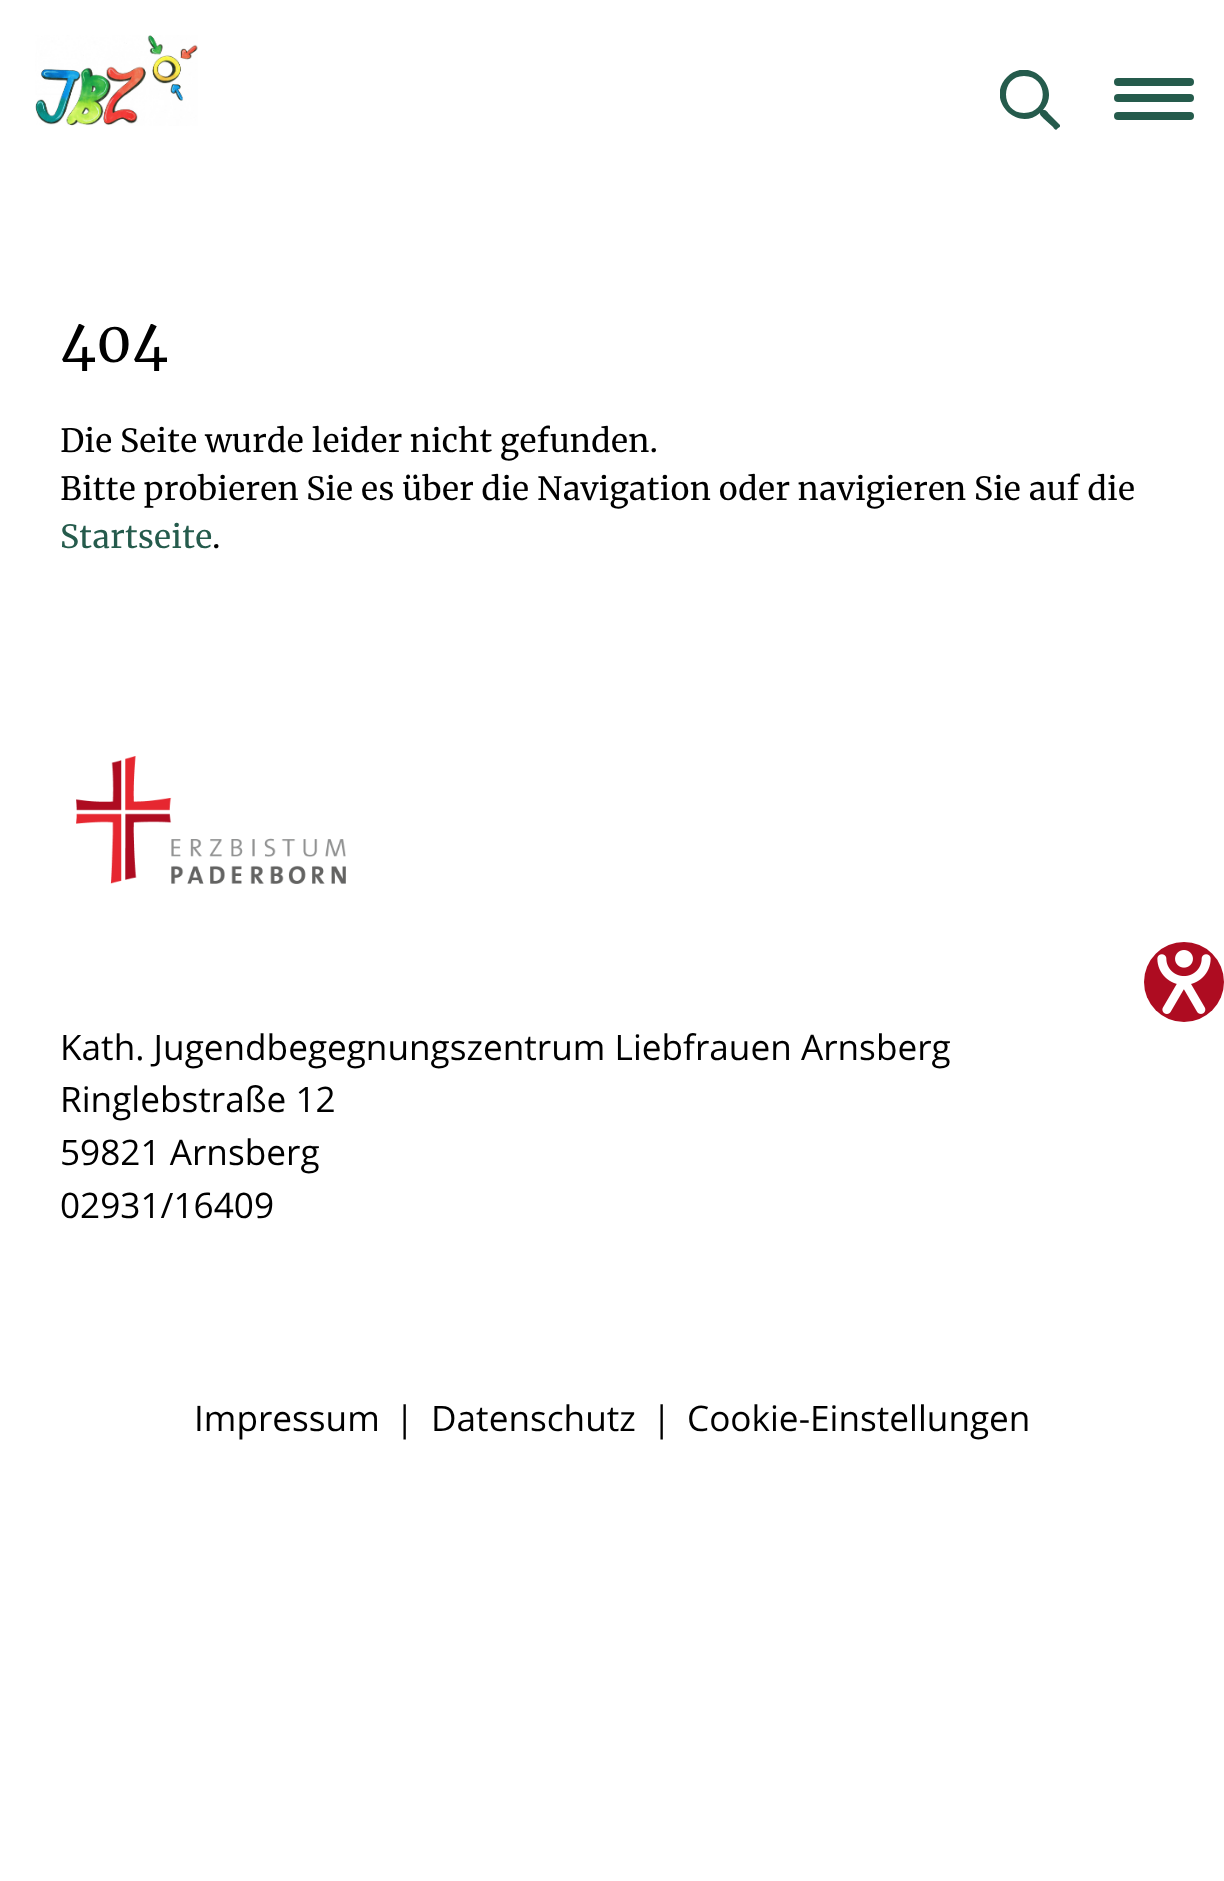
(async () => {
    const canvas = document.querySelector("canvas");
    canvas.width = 1224;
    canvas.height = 1881;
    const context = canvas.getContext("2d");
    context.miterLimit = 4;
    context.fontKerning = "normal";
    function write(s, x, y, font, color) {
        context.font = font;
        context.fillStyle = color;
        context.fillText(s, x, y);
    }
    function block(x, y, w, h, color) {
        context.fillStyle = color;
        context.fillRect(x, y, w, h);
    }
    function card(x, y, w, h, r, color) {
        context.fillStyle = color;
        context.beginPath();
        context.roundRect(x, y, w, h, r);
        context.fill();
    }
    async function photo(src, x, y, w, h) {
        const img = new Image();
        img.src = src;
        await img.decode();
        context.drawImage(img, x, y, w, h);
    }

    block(0, 0, 1224, 1881, "rgb(255, 255, 255)");
    await photo("media/1.png", 35, 35, 163, 91);
    context.save();
    context.beginPath();
    context.rect(1000, 70, 60, 60);
    context.clip();
    context.fillStyle = "rgb(37, 91, 76)";
    context.beginPath();
    context.moveTo(1060, 125);
    context.lineTo(1050, 115);
    context.bezierCurveTo(1047, 112, 1047, 110, 1043, 110);
    context.bezierCurveTo(1063, 87, 1029, 55, 1007, 77);
    context.bezierCurveTo(985, 99, 1017, 133, 1040, 113);
    context.bezierCurveTo(1040, 116, 1041, 115, 1043, 118);
    context.lineTo(1053, 127);
    context.bezierCurveTo(1055, 130, 1056, 131, 1058, 128);
    context.bezierCurveTo(1059, 128, 1061, 126, 1060, 125);
    context.closePath();
    context.moveTo(1024, 113);
    context.bezierCurveTo(1000, 113, 1000, 76, 1024, 76);
    context.bezierCurveTo(1049, 76, 1049, 113, 1024, 113);
    context.closePath();
    context.fill();
    context.restore();
    card(1114, 78, 80, 8, 4, "rgb(37, 91, 76)");
    card(1114, 94, 80, 8, 4, "rgb(37, 91, 76)");
    card(1114, 112, 80, 8, 4, "rgb(37, 91, 76)");
    write("404", 60, 362, "56px Merriweather", "rgb(0, 0, 0)");
    write("Die Seite wurde leider nicht gefunden.", 60, 452, "32px Merriweather", "rgb(0, 0, 0)");
    write("Bitte probieren Sie es über die Navigation oder navigieren Sie auf die", 60, 500, "32px Merriweather", "rgb(0, 0, 0)");
    write("Startseite", 60, 548, "32px Merriweather", "rgb(37, 91, 76)");
    write(".", 212, 548, "32px Merriweather", "rgb(0, 0, 0)");
    context.fillStyle = "rgb(174, 12, 33)";
    context.beginPath();
    context.arc(1184, 982, 40, 0, Math.PI * 2);
    context.fill();
    await photo("media/2.png", 1157, 950, 54, 64);
    await photo("media/3.png", 76, 756, 270, 128);
    write("Kath. Jugendbegegnungszentrum Liebfrauen Arnsberg", 60, 1060, "35.2px Open Sans", "rgb(0, 0, 0)");
    write("Ringlebstraße 12", 60, 1112, "35.2px Open Sans", "rgb(0, 0, 0)");
    write("59821 Arnsberg", 60, 1165, "35.2px Open Sans", "rgb(0, 0, 0)");
    write("02931/16409", 60, 1218, "35.2px Open Sans", "rgb(0, 0, 0)");
    write("Impressum", 194, 1431, "35.2px Open Sans", "rgb(0, 0, 0)");
    write("|", 395, 1431, "35.2px Open Sans", "rgb(0, 0, 0)");
    write("Datenschutz", 431, 1431, "35.2px Open Sans", "rgb(0, 0, 0)");
    write("|", 652, 1431, "35.2px Open Sans", "rgb(0, 0, 0)");
    write("Cookie-Einstellungen", 687, 1431, "35.2px Open Sans", "rgb(0, 0, 0)");
})();
